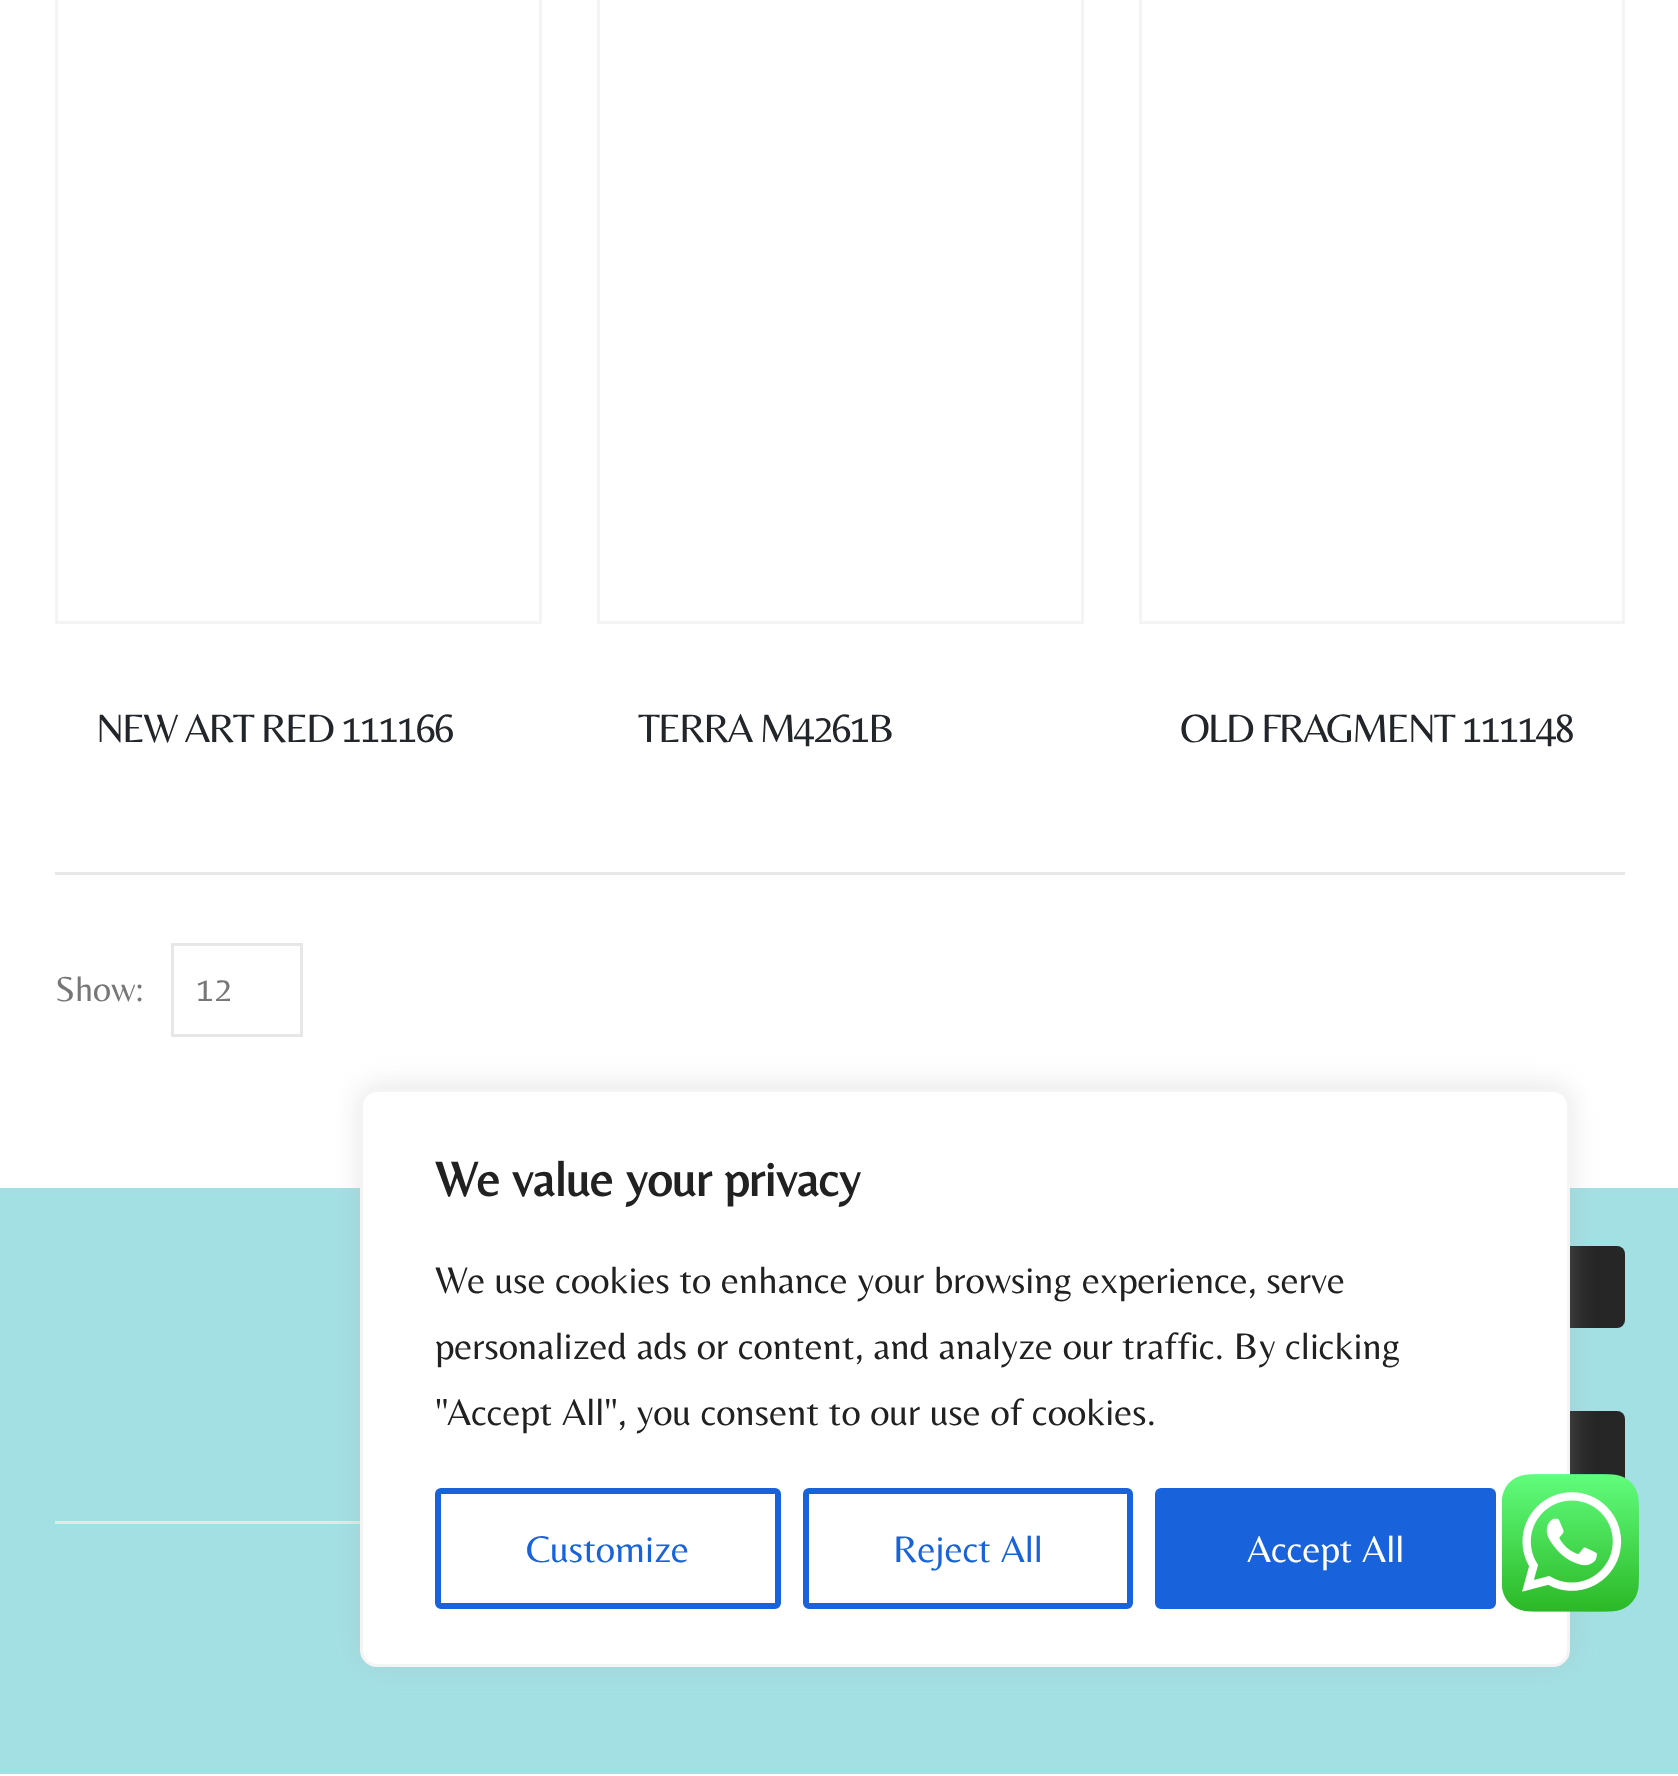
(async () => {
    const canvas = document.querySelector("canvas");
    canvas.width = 1678;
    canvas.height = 1776;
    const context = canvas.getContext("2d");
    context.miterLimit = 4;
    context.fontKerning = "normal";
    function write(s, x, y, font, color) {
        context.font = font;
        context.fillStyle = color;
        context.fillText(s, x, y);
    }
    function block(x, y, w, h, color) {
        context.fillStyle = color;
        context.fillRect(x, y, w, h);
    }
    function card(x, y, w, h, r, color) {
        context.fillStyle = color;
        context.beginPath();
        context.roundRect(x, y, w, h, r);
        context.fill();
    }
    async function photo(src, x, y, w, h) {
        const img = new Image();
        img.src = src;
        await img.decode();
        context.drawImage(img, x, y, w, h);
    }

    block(0, 0, 1678, 1776, "rgb(255, 255, 255)");
    context.strokeStyle = "rgb(244, 244, 244)";
    context.lineWidth = 3;
    context.strokeRect(56.5, -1.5, 484, 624);
    context.letterSpacing = "-2.1px";
    write("NEW ART RED 111166", 96, 742, "41.25px Belleza", "rgb(34, 37, 41)");
    context.strokeRect(598.5, -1.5, 484, 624);
    write("TERRA M4261B", 638, 742, "41.25px Belleza", "rgb(34, 37, 41)");
    context.strokeRect(1140.5, -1.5, 483, 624);
    write("OLD FRAGMENT 111148", 1180, 742, "41.25px Belleza", "rgb(34, 37, 41)");
    block(55, 872, 1570, 3, "rgb(231, 231, 231)");
    context.letterSpacing = "0px";
    write("Show:", 55, 1001, "36px Belleza", "rgb(119, 119, 119)");
    context.strokeStyle = "rgb(231, 231, 231)";
    context.strokeRect(172.5, 944.5, 129, 91);
    write("12", 196, 1001, "36px Belleza", "rgb(119, 119, 119)");
    block(0, 1188, 1678, 586, "rgb(163, 224, 228)");
    card(1543, 1246, 82, 82, 8, "rgb(38, 38, 38)");
    card(1543, 1411, 82, 82, 8, "rgb(38, 38, 38)");
    block(55, 1521, 305, 3, "rgb(231, 231, 231)");
    context.fillStyle = "rgba(172, 171, 171, 0.3)";
    context.filter = "blur(14px)";
    context.beginPath();
    context.roundRect(360, 1086, 1210, 578, 17);
    context.fill();
    context.filter = "none";
    context.fillStyle = "rgb(255, 255, 255)";
    context.beginPath();
    context.roundRect(361.5, 1090.5, 1207, 575, 15.5);
    context.fill();
    context.strokeStyle = "rgb(244, 244, 244)";
    context.stroke();
    write("We value your privacy", 435, 1196, "bold 49.5px Belleza", "rgb(33, 33, 33)");
    write("We use cookies to enhance your browsing experience, serve", 435, 1293, "38.5px Belleza", "rgb(33, 33, 33)");
    write("personalized ads or content, and analyze our traffic. By clicking", 435, 1359, "38.5px Belleza", "rgb(33, 33, 33)");
    write("\"Accept All\", you consent to our use of cookies.", 435, 1425, "38.5px Belleza", "rgb(33, 33, 33)");
    context.beginPath();
    context.roundRect(438, 1491, 340, 115, 3);
    context.strokeStyle = "rgb(24, 99, 220)";
    context.lineWidth = 6;
    context.stroke();
    write("Customize", 526, 1562, "38.5px Belleza", "rgb(24, 99, 220)");
    context.beginPath();
    context.roundRect(806, 1491, 324, 115, 3);
    context.stroke();
    write("Reject All", 893, 1562, "38.5px Belleza", "rgb(24, 99, 220)");
    context.beginPath();
    context.roundRect(1158, 1491, 335, 115, 3);
    context.fill();
    context.stroke();
    write("Accept All", 1247, 1562, "38.5px Belleza", "rgb(255, 255, 255)");
    await photo("media/1.png", 1502, 1474, 137, 138);
})();
